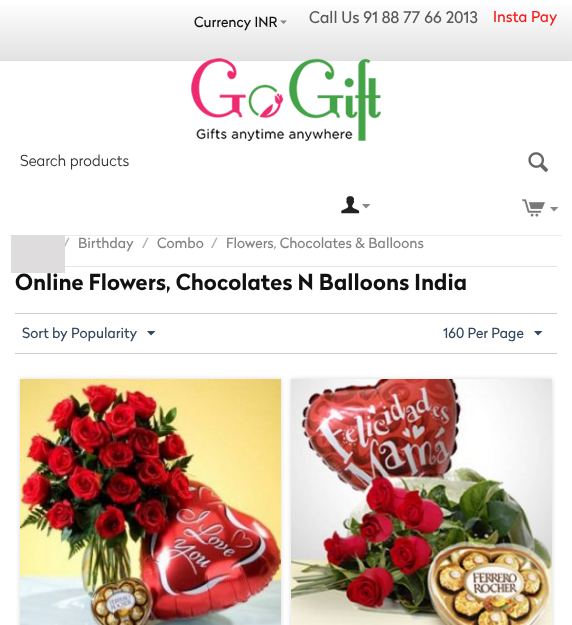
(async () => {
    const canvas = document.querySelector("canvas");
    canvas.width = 572;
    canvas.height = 625;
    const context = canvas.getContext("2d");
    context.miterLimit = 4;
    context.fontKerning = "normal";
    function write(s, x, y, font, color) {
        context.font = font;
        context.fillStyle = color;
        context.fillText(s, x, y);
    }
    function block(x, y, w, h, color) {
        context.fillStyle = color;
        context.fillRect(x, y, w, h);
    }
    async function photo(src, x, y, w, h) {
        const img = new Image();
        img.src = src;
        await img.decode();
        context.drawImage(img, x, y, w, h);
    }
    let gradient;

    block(0, 0, 572, 625, "rgb(255, 255, 255)");
    gradient = context.createLinearGradient(286, 0, 286, 61);
    gradient.addColorStop(0, "rgb(255, 255, 255)");
    gradient.addColorStop(1, "rgb(226, 226, 226)");
    context.fillStyle = gradient;
    context.fillRect(0, 5, 572, 56);
    write("Currency INR", 194, 27, "14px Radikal", "rgb(17, 17, 17)");
    context.fillStyle = "rgb(134, 134, 134)";
    context.beginPath();
    context.moveTo(283.5, 24);
    context.lineTo(280, 20.5);
    context.lineTo(287, 20.5);
    context.closePath();
    context.fill();
    write("Call Us 91 88 77 66 2013", 309, 23, "16px Radikal", "rgb(88, 88, 88)");
    write("Insta Pay", 493, 22, "15px Radikal", "rgb(244, 26, 25)");
    await photo("media/1.png", 191, 58, 190, 83);
    write("Search products", 20, 166, "300 15px Radikal", "rgb(51, 51, 51)");
    await photo("media/2.png", 528, 152, 21, 20);
    await photo("media/3.png", 341, 196, 19, 18);
    context.fillStyle = "rgb(134, 134, 134)";
    context.beginPath();
    context.moveTo(366, 208.5);
    context.lineTo(362, 204);
    context.lineTo(370.5, 204);
    context.closePath();
    context.fill();
    await photo("media/4.png", 522, 199, 23, 18);
    context.beginPath();
    context.moveTo(554, 211.5);
    context.lineTo(550, 207);
    context.lineTo(558.5, 207);
    context.closePath();
    context.fill();
    block(10, 235, 552, 1, "rgb(237, 237, 237)");
    write("/", 63, 248, "14px Radikal", "rgb(172, 172, 172)");
    block(11, 235, 54, 38, "rgb(222, 220, 220)");
    block(65, 266, 492, 1, "rgb(234, 227, 227)");
    write("Birthday", 78, 248, "14px Radikal", "rgb(131, 131, 131)");
    write("/", 142, 248, "14px Radikal", "rgb(172, 172, 172)");
    write("Combo", 157, 248, "14px Radikal", "rgb(131, 131, 131)");
    write("/", 211, 248, "14px Radikal", "rgb(172, 172, 172)");
    write("Flowers, Chocolates & Balloons", 226, 248, "14px Radikal", "rgb(131, 131, 131)");
    write("Online Flowers, Chocolates N Balloons India", 15, 290, "bold 22px Radikal", "rgb(17, 17, 17)");
    block(15, 313, 542, 1, "rgb(204, 204, 204)");
    block(15, 353, 542, 1, "rgb(204, 204, 204)");
    write("Sort by Popularity", 22, 338, "14px Radikal", "rgb(52, 73, 94)");
    context.beginPath();
    context.moveTo(151, 335.5);
    context.lineTo(147, 331);
    context.lineTo(155.5, 331);
    context.closePath();
    context.fill();
    write("160 Per Page", 443, 338, "14px Radikal", "rgb(52, 73, 94)");
    context.beginPath();
    context.moveTo(538, 335.5);
    context.lineTo(534, 331);
    context.lineTo(542.5, 331);
    context.closePath();
    context.fill();
    context.fillStyle = "rgba(0, 0, 0, 0.15)";
    context.filter = "blur(2.5px)";
    context.beginPath();
    context.rect(20, 379, 261, 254);
    context.fill();
    context.filter = "none";
    await photo("media/5.png", 20, 379, 261, 246);
    context.filter = "blur(2.5px)";
    context.beginPath();
    context.rect(291, 379, 261, 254);
    context.fill();
    context.filter = "none";
    await photo("media/6.png", 291, 379, 261, 246);
})();
